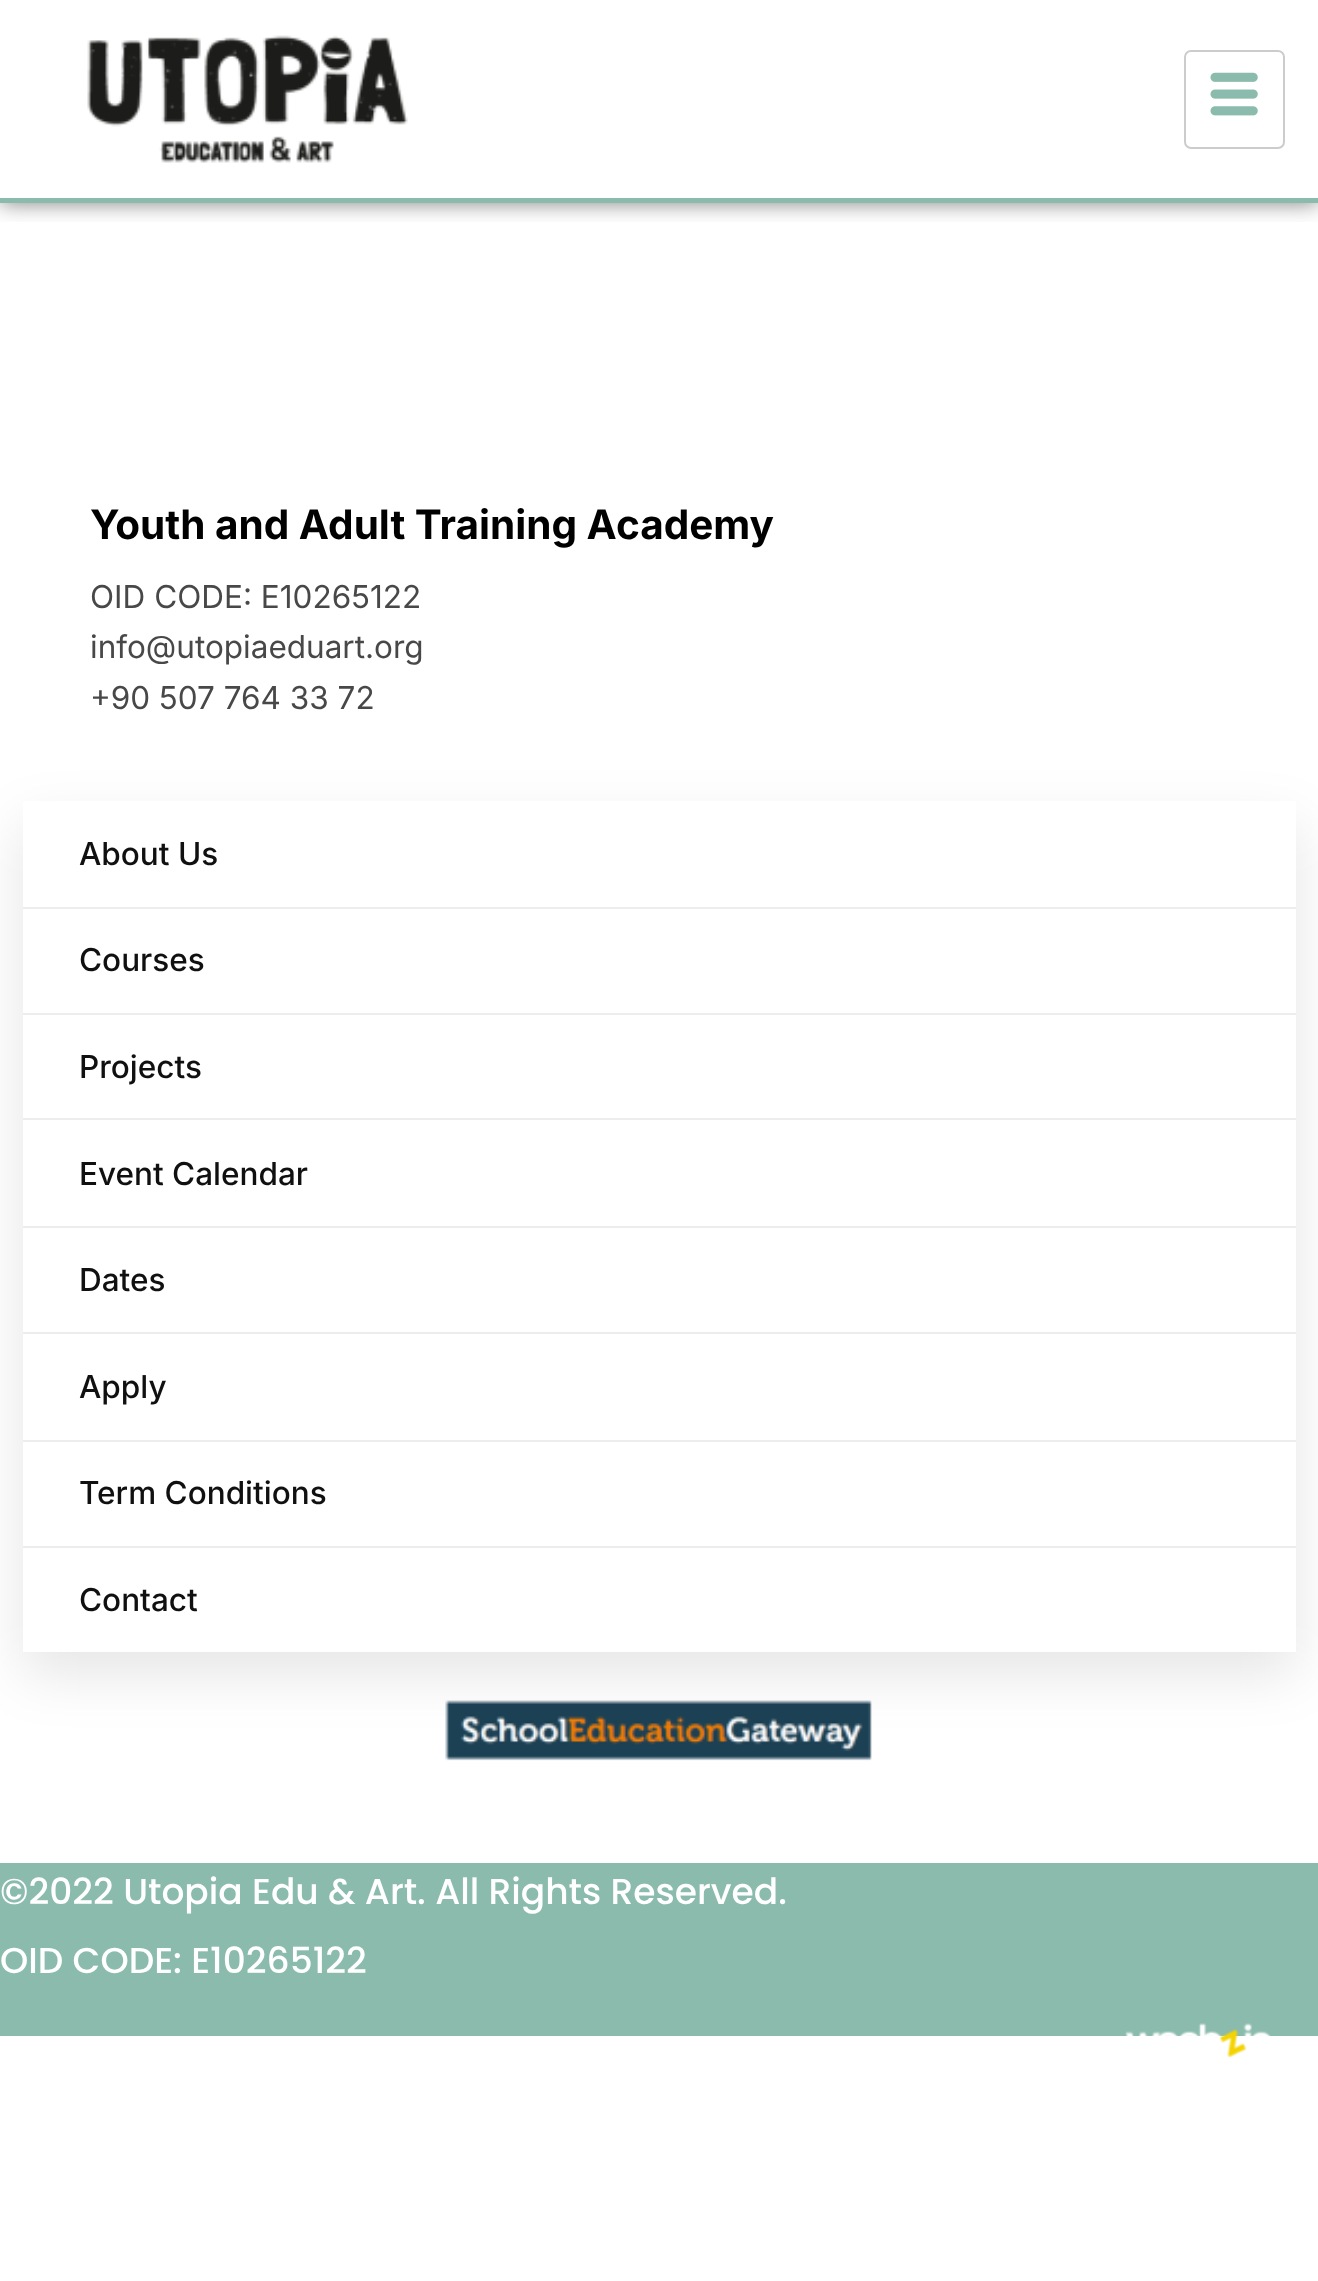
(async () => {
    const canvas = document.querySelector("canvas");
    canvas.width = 1318;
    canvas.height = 2281;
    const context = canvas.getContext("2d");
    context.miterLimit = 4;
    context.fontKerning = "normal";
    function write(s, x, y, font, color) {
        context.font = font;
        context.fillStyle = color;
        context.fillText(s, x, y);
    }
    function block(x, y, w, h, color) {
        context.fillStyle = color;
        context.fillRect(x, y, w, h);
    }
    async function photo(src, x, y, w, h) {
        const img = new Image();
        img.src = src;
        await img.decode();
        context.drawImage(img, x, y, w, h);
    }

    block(0, 0, 1318, 2281, "rgb(255, 255, 255)");
    context.save();
    context.beginPath();
    context.rect(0, 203, 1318, 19);
    context.clip();
    context.fillStyle = "rgba(0, 0, 0, 0.5)";
    context.filter = "blur(11px)";
    context.beginPath();
    context.rect(0, 0, 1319, 203);
    context.fill();
    context.filter = "none";
    context.restore();
    block(0, 198, 1318, 5, "rgb(139, 187, 173)");
    await photo("media/1.png", 87, 35, 321, 128);
    context.beginPath();
    context.roundRect(1185, 51, 99, 97, 6);
    context.strokeStyle = "rgb(204, 204, 204)";
    context.lineWidth = 2;
    context.stroke();
    await photo("media/2.png", 1210, 72, 48, 44);
    write("Youth and Adult Training Academy", 90, 539, "bold 40.5px Inter", "rgb(0, 0, 0)");
    write("OID CODE: E10265122", 90, 608, "31.5px Inter", "rgb(72, 72, 72)");
    write("info@utopiaeduart.org", 90, 658, "31.5px Inter", "rgb(72, 72, 72)");
    write("+90 507 764 33 72", 90, 709, "31.5px Inter", "rgb(72, 72, 72)");
    context.fillStyle = "rgba(0, 0, 0, 0.1)";
    context.filter = "blur(28px)";
    context.beginPath();
    context.rect(23, 824, 1273, 850);
    context.fill();
    context.filter = "none";
    block(23, 801, 1273, 851, "rgb(255, 255, 255)");
    block(23, 907, 1273, 2, "rgb(237, 237, 237)");
    write("About Us", 79, 865, "500 31.5px Inter", "rgb(16, 16, 16)");
    block(23, 1013, 1273, 2, "rgb(237, 237, 237)");
    write("Courses", 79, 971, "500 31.5px Inter", "rgb(16, 16, 16)");
    block(23, 1118, 1273, 2, "rgb(237, 237, 237)");
    write("Projects", 79, 1078, "500 31.5px Inter", "rgb(16, 16, 16)");
    block(23, 1226, 1273, 2, "rgb(237, 237, 237)");
    write("Event Calendar", 79, 1185, "500 31.5px Inter", "rgb(16, 16, 16)");
    block(23, 1332, 1273, 2, "rgb(237, 237, 237)");
    write("Dates", 79, 1291, "500 31.5px Inter", "rgb(16, 16, 16)");
    block(23, 1440, 1273, 2, "rgb(237, 237, 237)");
    write("Apply", 79, 1398, "500 31.5px Inter", "rgb(16, 16, 16)");
    block(23, 1546, 1273, 2, "rgb(237, 237, 237)");
    write("Term Conditions", 79, 1504, "500 31.5px Inter", "rgb(16, 16, 16)");
    write("Contact", 79, 1611, "500 31.5px Inter", "rgb(16, 16, 16)");
    await photo("media/3.png", 445, 1700, 427, 61);
    block(0, 1863, 1318, 173, "rgb(139, 187, 173)");
    write("©2022 Utopia Edu & Art. All Rights Reserved.", 0, 1904, "500 36px Poppins", "rgb(255, 255, 255)");
    write("OID CODE: E10265122", 0, 1973, "500 36px Poppins", "rgb(255, 255, 255)");
    await photo("media/4.png", 1125, 2023, 146, 34);
})();
